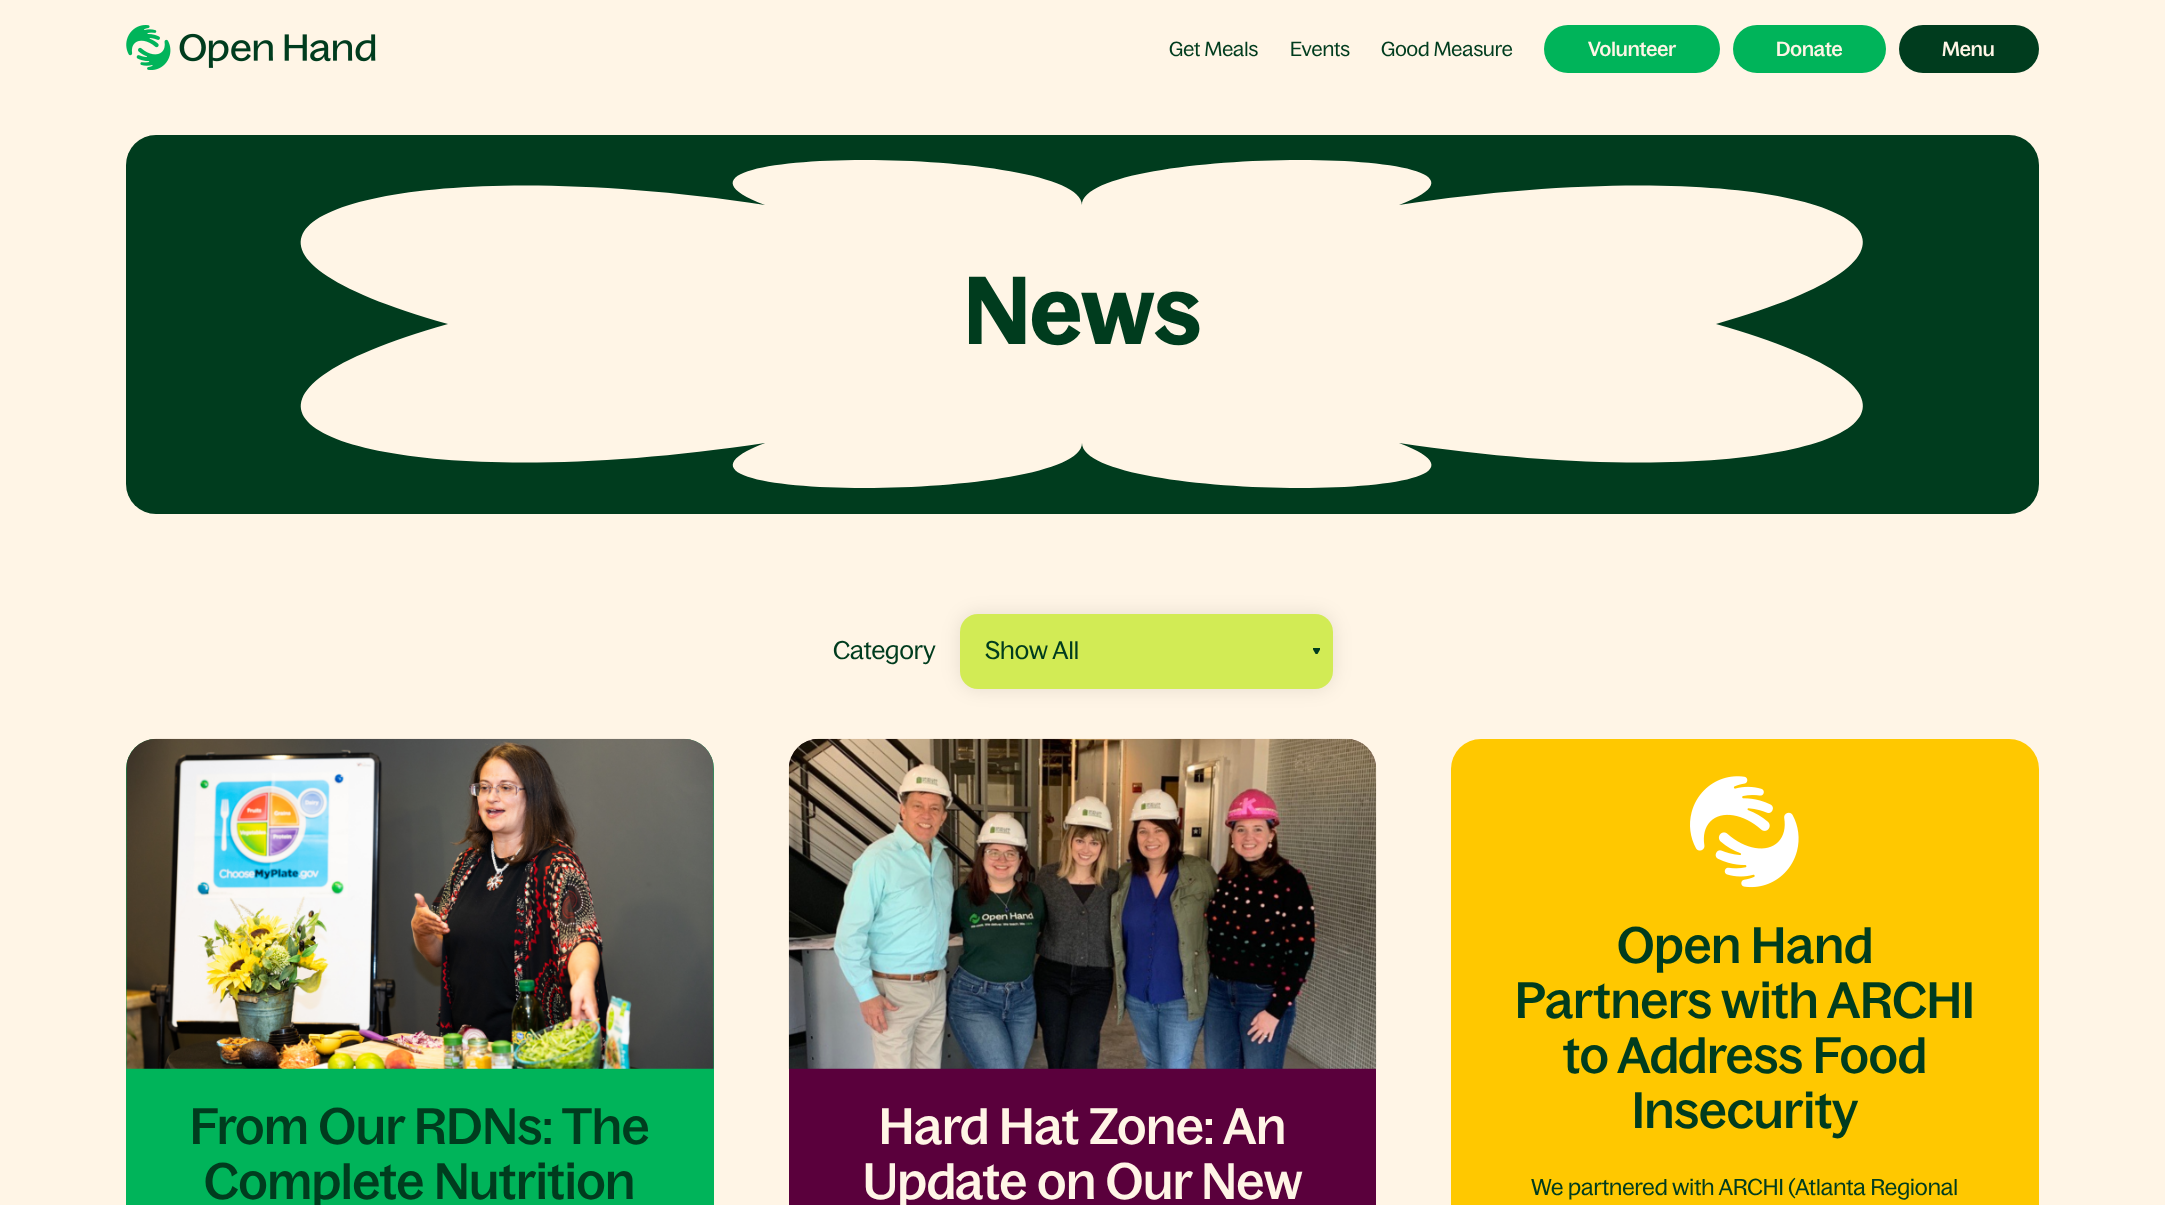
(async () => {
    const canvas = document.querySelector("canvas");
    canvas.width = 2165;
    canvas.height = 1205;
    const context = canvas.getContext("2d");
    context.miterLimit = 4;
    context.fontKerning = "normal";
    function write(s, x, y, font, color) {
        context.font = font;
        context.fillStyle = color;
        context.fillText(s, x, y);
    }
    function block(x, y, w, h, color) {
        context.fillStyle = color;
        context.fillRect(x, y, w, h);
    }
    function card(x, y, w, h, r, color) {
        context.fillStyle = color;
        context.beginPath();
        context.roundRect(x, y, w, h, r);
        context.fill();
    }
    async function photo(src, x, y, w, h) {
        const img = new Image();
        img.src = src;
        await img.decode();
        context.drawImage(img, x, y, w, h);
    }

    block(0, 0, 2165, 1205, "rgb(255, 245, 230)");
    await photo("media/1.png", 126, 25, 250, 45);
    write("Get Meals", 1169, 56, "20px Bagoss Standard", "rgb(0, 60, 30)");
    write("Events", 1290, 56, "20px Bagoss Standard", "rgb(0, 60, 30)");
    write("Good Measure", 1381, 56, "20px Bagoss Standard", "rgb(0, 60, 30)");
    card(1544, 25, 176, 48, 24, "rgb(0, 180, 90)");
    write("Volunteer", 1588, 56, "500 20px Bagoss Standard", "rgb(255, 245, 230)");
    card(1733, 25, 153, 48, 24, "rgb(0, 180, 90)");
    write("Donate", 1776, 56, "500 20px Bagoss Standard", "rgb(255, 245, 230)");
    card(1899, 25, 140, 48, 24, "rgb(0, 60, 30)");
    write("Menu", 1942, 56, "500 20px Bagoss Standard", "rgb(255, 245, 230)");
    card(126, 135, 1913, 379, 30, "rgb(0, 60, 30)");
    context.fillStyle = "rgb(255, 245, 230)";
    context.beginPath();
    context.moveTo(448, 324);
    context.bezierCurveTo(131, 235, 368, 145, 765, 205);
    context.bezierCurveTo(607, 145, 1082, 145, 1082, 205);
    context.bezierCurveTo(1082, 145, 1558, 145, 1399, 205);
    context.bezierCurveTo(1796, 145, 2033, 235, 1716, 324);
    context.bezierCurveTo(2033, 414, 1796, 503, 1399, 443);
    context.bezierCurveTo(1558, 503, 1082, 503, 1082, 443);
    context.bezierCurveTo(1082, 503, 607, 503, 765, 443);
    context.bezierCurveTo(368, 503, 131, 414, 448, 324);
    context.closePath();
    context.fill();
    write("News", 964, 344, "600 94px Bagoss Standard", "rgb(0, 60, 30)");
    write("Category", 833, 659, "25px Bagoss Standard", "rgb(0, 60, 30)");
    context.fillStyle = "rgba(0, 0, 0, 0.1)";
    context.filter = "blur(9.5px)";
    context.beginPath();
    context.roundRect(960, 614, 373, 75, 18);
    context.fill();
    context.filter = "none";
    card(960, 614, 373, 75, 18, "rgb(210, 235, 85)");
    await photo("media/2.png", 1313, 648, 7, 6);
    write("Show All", 985, 659, "25px Bagoss Standard", "rgb(0, 60, 30)");
    card(126, 739, 588, 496, 30, "rgb(0, 180, 90)");
    await photo("media/3.png", 126, 738, 588, 331);
    write("From Our RDNs: The", 190, 1144, "500 50px Bagoss Standard", "rgb(0, 60, 30)");
    write("Complete Nutrition", 204, 1199, "500 50px Bagoss Standard", "rgb(0, 60, 30)");
    card(789, 739, 587, 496, 30, "rgb(90, 0, 60)");
    await photo("media/4.png", 788, 738, 589, 331);
    write("Hard Hat Zone: An", 879, 1144, "500 50px Bagoss Standard", "rgb(255, 245, 230)");
    write("Update on Our New", 863, 1199, "500 50px Bagoss Standard", "rgb(255, 245, 230)");
    card(1451, 739, 588, 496, 30, "rgb(255, 200, 0)");
    await photo("media/5.png", 1690, 776, 109, 112);
    write("Open Hand", 1617, 963, "500 50px Bagoss Standard", "rgb(0, 60, 30)");
    write("Partners with ARCHI", 1515, 1018, "500 50px Bagoss Standard", "rgb(0, 60, 30)");
    write("to Address Food", 1563, 1073, "500 50px Bagoss Standard", "rgb(0, 60, 30)");
    write("Insecurity", 1632, 1128, "500 50px Bagoss Standard", "rgb(0, 60, 30)");
    write("We partnered with ARCHI (Atlanta Regional", 1531, 1195, "22.5px Bagoss Standard", "rgb(0, 60, 30)");
})();
